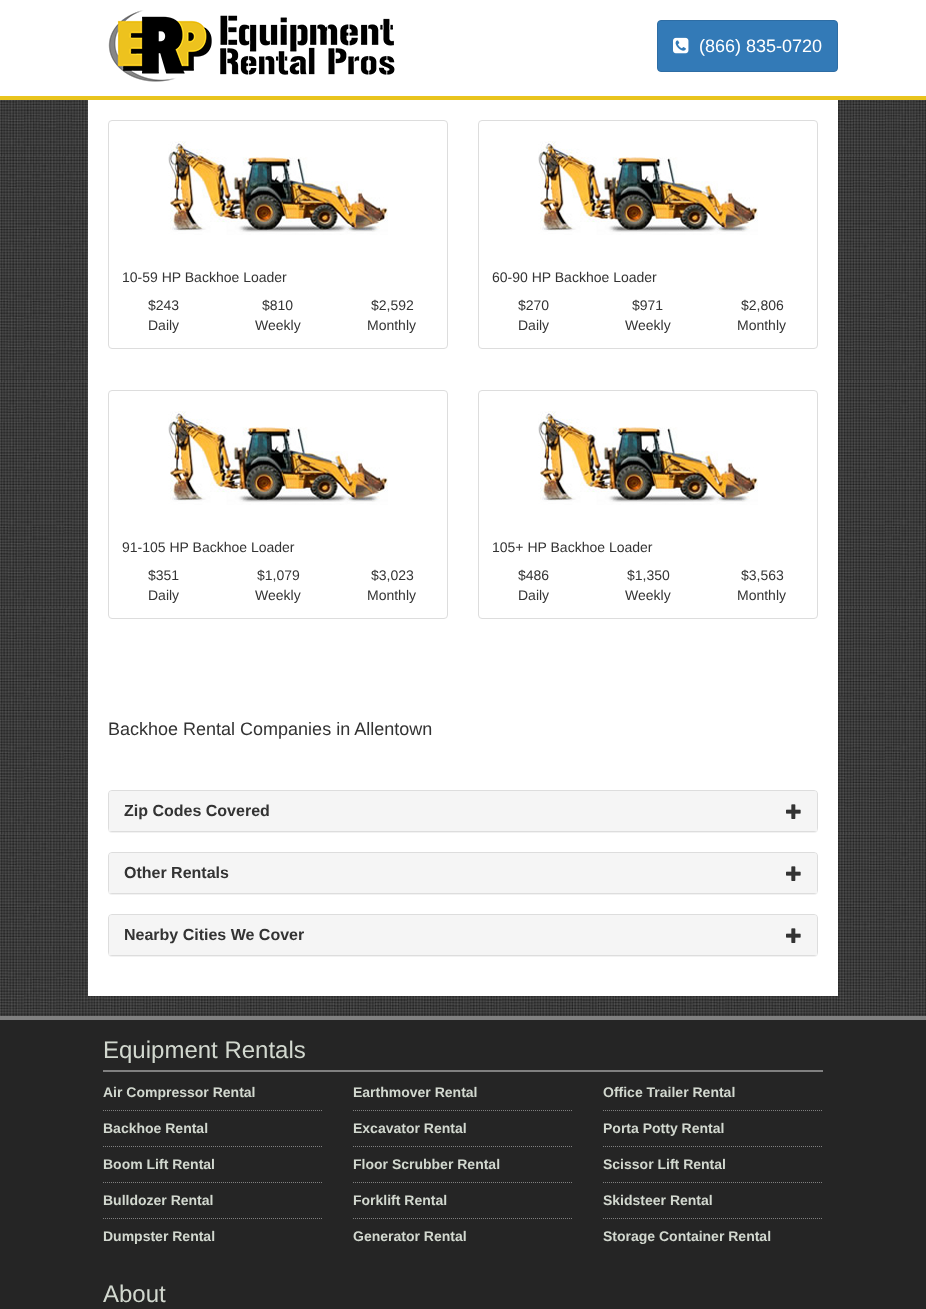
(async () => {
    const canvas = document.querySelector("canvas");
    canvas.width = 926;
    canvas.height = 1309;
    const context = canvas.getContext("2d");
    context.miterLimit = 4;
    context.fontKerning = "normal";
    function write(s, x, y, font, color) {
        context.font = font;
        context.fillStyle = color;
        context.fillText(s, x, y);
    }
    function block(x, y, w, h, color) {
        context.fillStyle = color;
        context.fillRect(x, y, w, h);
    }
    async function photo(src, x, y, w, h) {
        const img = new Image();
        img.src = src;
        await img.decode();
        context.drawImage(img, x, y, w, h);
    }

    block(0, 0, 926, 1309, "rgb(255, 255, 255)");
    await photo("media/1.png", 0, 100, 926, 916);
    block(0, 96, 926, 4, "rgb(233, 196, 29)");
    await photo("media/2.png", 108, 10, 287, 72);
    context.fillStyle = "rgb(51, 122, 183)";
    context.beginPath();
    context.roundRect(657.5, 20.5, 180, 51, 3.5);
    context.fill();
    context.strokeStyle = "rgb(46, 109, 164)";
    context.stroke();
    await photo("media/3.png", 673, 37, 16, 17);
    write("(866) 835-0720", 699, 52, "18px Liberation Sans", "rgb(255, 255, 255)");
    block(88, 100, 750, 896, "rgb(255, 255, 255)");
    context.beginPath();
    context.roundRect(108.5, 120.5, 339, 228, 3.5);
    context.strokeStyle = "rgb(221, 221, 221)";
    context.stroke();
    await photo("media/4.png", 168, 141, 220, 94);
    write("10-59 HP Backhoe Loader", 122, 282, "14px Liberation Sans", "rgb(51, 51, 51)");
    write("$243", 148, 310, "14px Liberation Sans", "rgb(51, 51, 51)");
    write("Daily", 148, 330, "14px Liberation Sans", "rgb(51, 51, 51)");
    write("$810", 262, 310, "14px Liberation Sans", "rgb(51, 51, 51)");
    write("Weekly", 255, 330, "14px Liberation Sans", "rgb(51, 51, 51)");
    write("$2,592", 371, 310, "14px Liberation Sans", "rgb(51, 51, 51)");
    write("Monthly", 367, 330, "14px Liberation Sans", "rgb(51, 51, 51)");
    context.beginPath();
    context.roundRect(478.5, 120.5, 339, 228, 3.5);
    context.stroke();
    await photo("media/4.png", 538, 141, 220, 94);
    write("60-90 HP Backhoe Loader", 492, 282, "14px Liberation Sans", "rgb(51, 51, 51)");
    write("$270", 518, 310, "14px Liberation Sans", "rgb(51, 51, 51)");
    write("Daily", 518, 330, "14px Liberation Sans", "rgb(51, 51, 51)");
    write("$971", 632, 310, "14px Liberation Sans", "rgb(51, 51, 51)");
    write("Weekly", 625, 330, "14px Liberation Sans", "rgb(51, 51, 51)");
    write("$2,806", 741, 310, "14px Liberation Sans", "rgb(51, 51, 51)");
    write("Monthly", 737, 330, "14px Liberation Sans", "rgb(51, 51, 51)");
    context.beginPath();
    context.roundRect(108.5, 390.5, 339, 228, 3.5);
    context.stroke();
    await photo("media/4.png", 168, 411, 220, 94);
    write("91-105 HP Backhoe Loader", 122, 552, "14px Liberation Sans", "rgb(51, 51, 51)");
    write("$351", 148, 580, "14px Liberation Sans", "rgb(51, 51, 51)");
    write("Daily", 148, 600, "14px Liberation Sans", "rgb(51, 51, 51)");
    write("$1,079", 257, 580, "14px Liberation Sans", "rgb(51, 51, 51)");
    write("Weekly", 255, 600, "14px Liberation Sans", "rgb(51, 51, 51)");
    write("$3,023", 371, 580, "14px Liberation Sans", "rgb(51, 51, 51)");
    write("Monthly", 367, 600, "14px Liberation Sans", "rgb(51, 51, 51)");
    context.beginPath();
    context.roundRect(478.5, 390.5, 339, 228, 3.5);
    context.stroke();
    await photo("media/4.png", 538, 411, 220, 94);
    write("105+ HP Backhoe Loader", 492, 552, "14px Liberation Sans", "rgb(51, 51, 51)");
    write("$486", 518, 580, "14px Liberation Sans", "rgb(51, 51, 51)");
    write("Daily", 518, 600, "14px Liberation Sans", "rgb(51, 51, 51)");
    write("$1,350", 627, 580, "14px Liberation Sans", "rgb(51, 51, 51)");
    write("Weekly", 625, 600, "14px Liberation Sans", "rgb(51, 51, 51)");
    write("$3,563", 741, 580, "14px Liberation Sans", "rgb(51, 51, 51)");
    write("Monthly", 737, 600, "14px Liberation Sans", "rgb(51, 51, 51)");
    write("Backhoe Rental Companies in Allentown", 108, 735, "18px Liberation Sans", "rgb(51, 51, 51)");
    context.fillStyle = "rgba(0, 0, 0, 0.05)";
    context.filter = "blur(0.5px)";
    context.beginPath();
    context.roundRect(108, 791, 710, 42, 4);
    context.fill();
    context.filter = "none";
    context.beginPath();
    context.roundRect(108.5, 790.5, 709, 41, 3.5);
    context.stroke();
    context.fillStyle = "rgb(245, 245, 245)";
    context.beginPath();
    context.roundRect(109, 791, 708, 40, [3, 3, 0, 0]);
    context.fill();
    write("Zip Codes Covered", 124, 816, "bold 16px Liberation Sans", "rgb(51, 51, 51)");
    await photo("media/5.png", 786, 804, 15, 15);
    context.fillStyle = "rgba(0, 0, 0, 0.05)";
    context.filter = "blur(0.5px)";
    context.beginPath();
    context.roundRect(108, 853, 710, 42, 4);
    context.fill();
    context.filter = "none";
    context.beginPath();
    context.roundRect(108.5, 852.5, 709, 41, 3.5);
    context.stroke();
    context.fillStyle = "rgb(245, 245, 245)";
    context.beginPath();
    context.roundRect(109, 853, 708, 40, [3, 3, 0, 0]);
    context.fill();
    write("Other Rentals", 124, 878, "bold 16px Liberation Sans", "rgb(51, 51, 51)");
    await photo("media/5.png", 786, 866, 15, 15);
    context.fillStyle = "rgba(0, 0, 0, 0.05)";
    context.filter = "blur(0.5px)";
    context.beginPath();
    context.roundRect(108, 915, 710, 42, 4);
    context.fill();
    context.filter = "none";
    context.beginPath();
    context.roundRect(108.5, 914.5, 709, 41, 3.5);
    context.stroke();
    context.fillStyle = "rgb(245, 245, 245)";
    context.beginPath();
    context.roundRect(109, 915, 708, 40, [3, 3, 0, 0]);
    context.fill();
    write("Nearby Cities We Cover", 124, 940, "bold 16px Liberation Sans", "rgb(51, 51, 51)");
    await photo("media/5.png", 786, 928, 15, 15);
    block(0, 1020, 926, 289, "rgb(37, 37, 37)");
    block(0, 1016, 926, 4, "rgb(128, 128, 128)");
    block(103, 1070, 720, 2, "rgb(128, 128, 128)");
    write("Equipment Rentals", 103, 1058, "24px Liberation Sans", "rgb(210, 216, 207)");
    context.beginPath();
    context.moveTo(103, 1110.5);
    context.lineTo(323, 1110.5);
    context.strokeStyle = "rgb(128, 128, 128)";
    context.setLineDash([1, 1]);
    context.stroke();
    write("Air Compressor Rental", 103, 1097, "bold 14px Liberation Sans", "rgb(210, 216, 207)");
    context.beginPath();
    context.moveTo(103, 1146.5);
    context.lineTo(323, 1146.5);
    context.stroke();
    write("Backhoe Rental", 103, 1133, "bold 14px Liberation Sans", "rgb(210, 216, 207)");
    context.beginPath();
    context.moveTo(103, 1182.5);
    context.lineTo(323, 1182.5);
    context.stroke();
    write("Boom Lift Rental", 103, 1169, "bold 14px Liberation Sans", "rgb(210, 216, 207)");
    context.beginPath();
    context.moveTo(103, 1218.5);
    context.lineTo(323, 1218.5);
    context.stroke();
    write("Bulldozer Rental", 103, 1205, "bold 14px Liberation Sans", "rgb(210, 216, 207)");
    write("Dumpster Rental", 103, 1241, "bold 14px Liberation Sans", "rgb(210, 216, 207)");
    context.beginPath();
    context.moveTo(353, 1110.5);
    context.lineTo(573, 1110.5);
    context.stroke();
    write("Earthmover Rental", 353, 1097, "bold 14px Liberation Sans", "rgb(210, 216, 207)");
    context.beginPath();
    context.moveTo(353, 1146.5);
    context.lineTo(573, 1146.5);
    context.stroke();
    write("Excavator Rental", 353, 1133, "bold 14px Liberation Sans", "rgb(210, 216, 207)");
    context.beginPath();
    context.moveTo(353, 1182.5);
    context.lineTo(573, 1182.5);
    context.stroke();
    write("Floor Scrubber Rental", 353, 1169, "bold 14px Liberation Sans", "rgb(210, 216, 207)");
    context.beginPath();
    context.moveTo(353, 1218.5);
    context.lineTo(573, 1218.5);
    context.stroke();
    write("Forklift Rental", 353, 1205, "bold 14px Liberation Sans", "rgb(210, 216, 207)");
    write("Generator Rental", 353, 1241, "bold 14px Liberation Sans", "rgb(210, 216, 207)");
    context.beginPath();
    context.moveTo(603, 1110.5);
    context.lineTo(823, 1110.5);
    context.stroke();
    write("Office Trailer Rental", 603, 1097, "bold 14px Liberation Sans", "rgb(210, 216, 207)");
    context.beginPath();
    context.moveTo(603, 1146.5);
    context.lineTo(823, 1146.5);
    context.stroke();
    write("Porta Potty Rental", 603, 1133, "bold 14px Liberation Sans", "rgb(210, 216, 207)");
    context.beginPath();
    context.moveTo(603, 1182.5);
    context.lineTo(823, 1182.5);
    context.stroke();
    write("Scissor Lift Rental", 603, 1169, "bold 14px Liberation Sans", "rgb(210, 216, 207)");
    context.beginPath();
    context.moveTo(603, 1218.5);
    context.lineTo(823, 1218.5);
    context.stroke();
    write("Skidsteer Rental", 603, 1205, "bold 14px Liberation Sans", "rgb(210, 216, 207)");
    write("Storage Container Rental", 603, 1241, "bold 14px Liberation Sans", "rgb(210, 216, 207)");
    write("About", 103, 1302, "24px Liberation Sans", "rgb(210, 216, 207)");
})();
